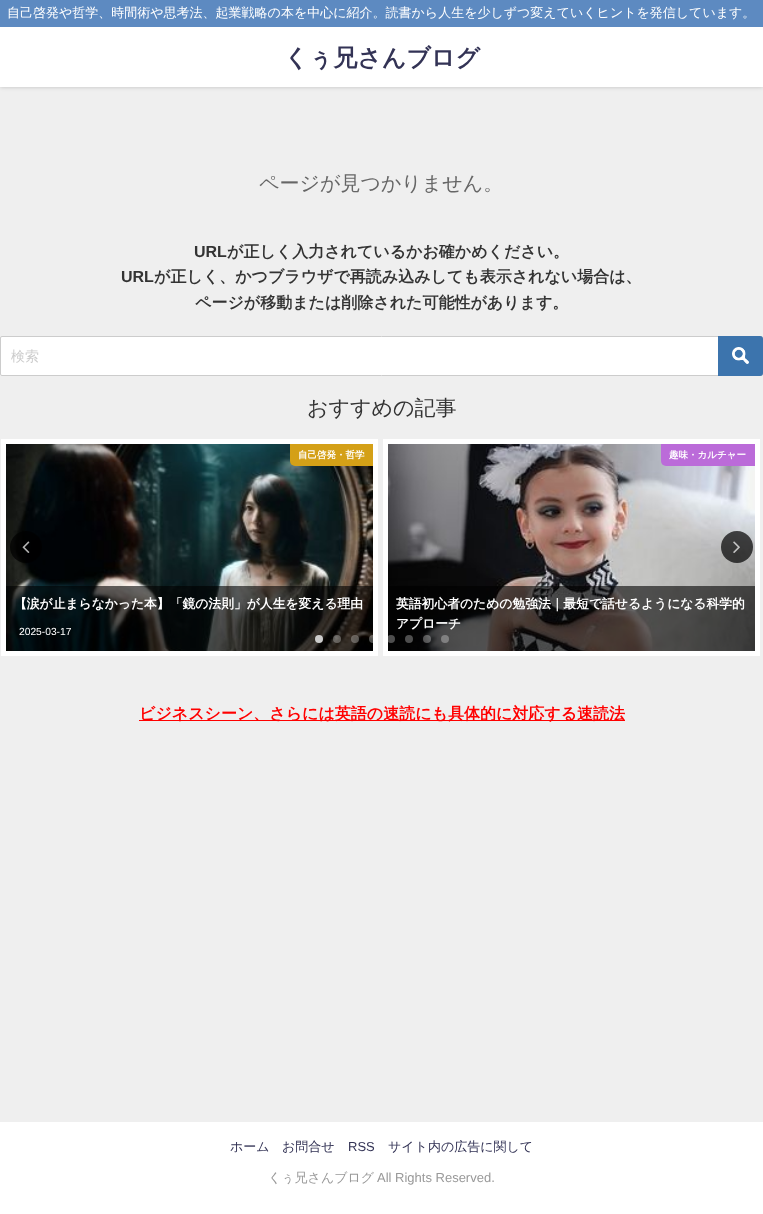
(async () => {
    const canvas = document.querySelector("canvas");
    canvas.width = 763;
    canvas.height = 1214;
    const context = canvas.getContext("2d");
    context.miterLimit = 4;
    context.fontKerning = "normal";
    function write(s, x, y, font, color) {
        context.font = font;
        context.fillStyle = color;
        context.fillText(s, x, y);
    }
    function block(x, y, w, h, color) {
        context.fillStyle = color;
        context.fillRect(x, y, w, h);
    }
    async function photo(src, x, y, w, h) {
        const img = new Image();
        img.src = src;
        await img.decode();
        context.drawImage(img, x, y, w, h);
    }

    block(0, 0, 763, 1214, "rgb(239, 239, 239)");
    context.fillStyle = "rgba(0, 0, 0, 0.2)";
    context.filter = "blur(2px)";
    context.beginPath();
    context.rect(0, 0, 763, 87);
    context.fill();
    context.filter = "none";
    block(0, 27, 763, 60, "rgb(255, 255, 255)");
    block(0, 0, 763, 27, "rgb(93, 138, 193)");
    write("自己啓発や哲学、時間術や思考法、起業戦略の本を中心に紹介。読書から人生を少しずつ変えていくヒントを発信しています。", 7, 17, "500 13px WenQuanYi Zen Hei", "rgb(255, 255, 255)");
    write("くぅ兄さんブログ", 284, 66, "bold 24px WenQuanYi Zen Hei", "rgb(51, 51, 85)");
    write("ページが見つかりません。", 259, 190, "500 20px WenQuanYi Zen Hei", "rgb(102, 102, 102)");
    write("URL", 194, 257, "bold 16px Liberation Sans", "rgb(51, 51, 51)");
    write("が正しく入力されているかお確かめください。", 227, 257, "bold 16px WenQuanYi Zen Hei", "rgb(51, 51, 51)");
    write("URL", 121, 282, "bold 16px Liberation Sans", "rgb(51, 51, 51)");
    write("が正しく、かつブラウザで再読み込みしても表示されない場合は、", 154, 282, "bold 16px WenQuanYi Zen Hei", "rgb(51, 51, 51)");
    write("ページが移動または削除された可能性があります。", 195, 308, "bold 16px WenQuanYi Zen Hei", "rgb(51, 51, 51)");
    context.fillStyle = "rgb(255, 255, 255)";
    context.beginPath();
    context.roundRect(0.5, 336.5, 762, 39, 1.5);
    context.fill();
    context.strokeStyle = "rgb(204, 204, 204)";
    context.stroke();
    write("検索", 11, 361, "500 14px WenQuanYi Zen Hei", "rgb(204, 204, 204)");
    context.fillStyle = "rgb(60, 116, 173)";
    context.beginPath();
    context.roundRect(718, 336, 45, 40, [0, 3, 3, 0]);
    context.fill();
    await photo("media/1.png", 732, 347, 17, 17);
    write("おすすめの記事", 307, 415, "500 21px WenQuanYi Zen Hei", "rgb(51, 51, 51)");
    block(1, 439, 377, 217, "rgb(255, 255, 255)");
    await photo("media/2.png", 6, 444, 367, 207);
    context.fillStyle = "rgb(212, 160, 23)";
    context.beginPath();
    context.roundRect(290, 444, 83, 22, [0, 0, 0, 5]);
    context.fill();
    write("自己啓発・哲学", 298, 458, "bold 9.5px WenQuanYi Zen Hei", "rgb(255, 255, 255)");
    block(6, 586, 367, 65, "rgba(0, 0, 0, 0.6)");
    write("【涙が止まらなかった本】「鏡の法則」が人生を変える理由", 14, 608, "bold 12.8px WenQuanYi Zen Hei", "rgb(255, 255, 255)");
    write("2025-03-17", 19, 635, "10.25px Liberation Sans", "rgb(255, 255, 255)");
    block(383, 439, 377, 217, "rgb(255, 255, 255)");
    await photo("media/3.png", 388, 444, 367, 207);
    context.fillStyle = "rgb(187, 107, 217)";
    context.beginPath();
    context.roundRect(661, 444, 94, 22, [0, 0, 0, 5]);
    context.fill();
    write("趣味・カルチャー", 669, 458, "bold 9.5px WenQuanYi Zen Hei", "rgb(255, 255, 255)");
    block(388, 586, 367, 65, "rgba(0, 0, 0, 0.6)");
    write("英語初心者のための勉強法｜最短で話せるようになる科学的", 396, 608, "bold 12.8px WenQuanYi Zen Hei", "rgb(255, 255, 255)");
    write("アプローチ", 396, 628, "bold 12.8px WenQuanYi Zen Hei", "rgb(255, 255, 255)");
    context.fillStyle = "rgba(0, 0, 0, 0.7)";
    context.beginPath();
    context.arc(26, 547, 16, 0, Math.PI * 2);
    context.fill();
    await photo("media/4.png", 22, 541, 8, 12);
    context.beginPath();
    context.arc(737, 547, 16, 0, Math.PI * 2);
    context.fill();
    await photo("media/5.png", 733, 541, 7, 12);
    context.fillStyle = "rgb(204, 204, 204)";
    context.beginPath();
    context.arc(319, 639, 4, 0, Math.PI * 2);
    context.fill();
    context.fillStyle = "rgba(255, 255, 255, 0.3)";
    context.beginPath();
    context.arc(337, 639, 4, 0, Math.PI * 2);
    context.fill();
    context.beginPath();
    context.arc(355, 639, 4, 0, Math.PI * 2);
    context.fill();
    context.beginPath();
    context.arc(373, 639, 4, 0, Math.PI * 2);
    context.fill();
    context.beginPath();
    context.arc(391, 639, 4, 0, Math.PI * 2);
    context.fill();
    context.fillStyle = "rgb(78, 78, 78)";
    context.beginPath();
    context.arc(409, 639, 4, 0, Math.PI * 2);
    context.fill();
    context.fillStyle = "rgba(255, 255, 255, 0.3)";
    context.beginPath();
    context.arc(427, 639, 4, 0, Math.PI * 2);
    context.fill();
    context.beginPath();
    context.arc(445, 639, 4, 0, Math.PI * 2);
    context.fill();
    block(139, 720, 486, 1, "rgb(255, 0, 0)");
    write("ビジネスシーン、さらには英語の速読にも具体的に対応する速読法", 139, 719, "bold 16px WenQuanYi Zen Hei", "rgb(255, 0, 0)");
    block(0, 1122, 763, 92, "rgb(255, 255, 255)");
    write("ホーム", 230, 1151, "500 13px WenQuanYi Zen Hei", "rgb(51, 51, 85)");
    write("お問合せ", 282, 1151, "500 13px WenQuanYi Zen Hei", "rgb(51, 51, 85)");
    write("RSS", 348, 1151, "13px Liberation Sans", "rgb(51, 51, 85)");
    write("サイト内の広告に関して", 388, 1151, "500 13px WenQuanYi Zen Hei", "rgb(51, 51, 85)");
    write("くぅ兄さんブログ", 268, 1182, "500 13px WenQuanYi Zen Hei", "rgb(153, 153, 153)");
    write("All Rights Reserved.", 377, 1182, "13px Liberation Sans", "rgb(153, 153, 153)");
})();
